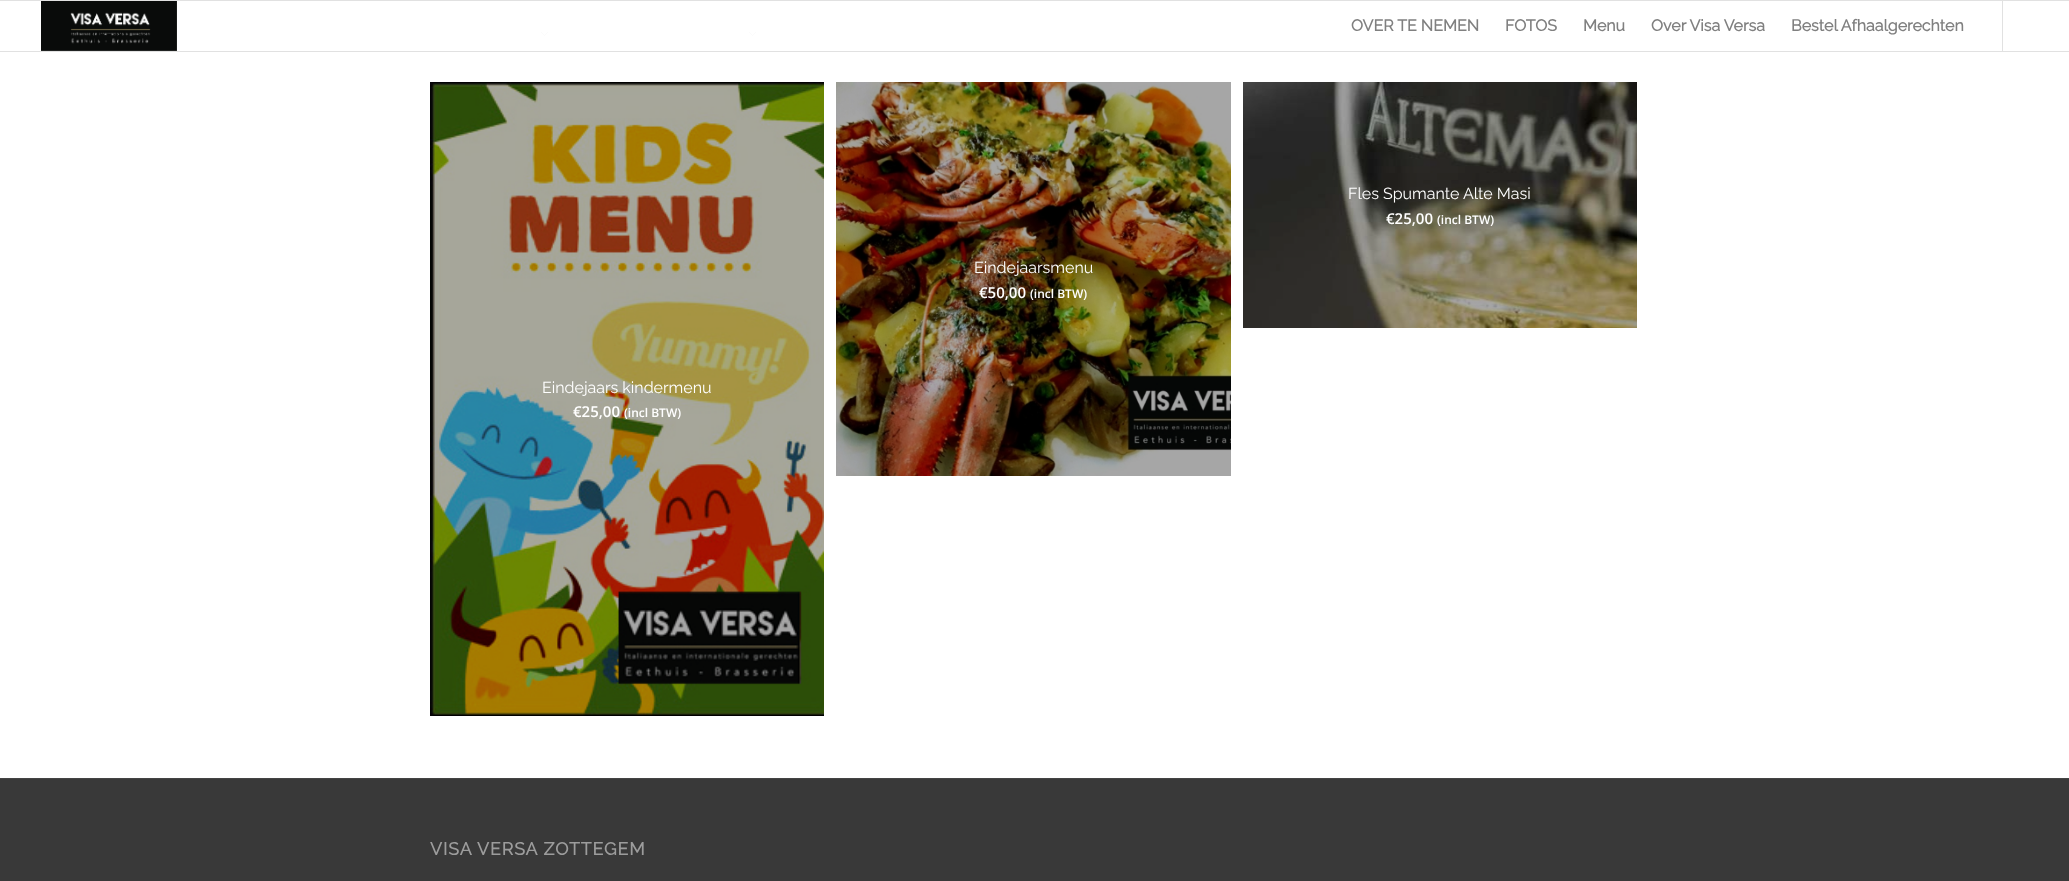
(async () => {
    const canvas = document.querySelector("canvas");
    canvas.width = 2069;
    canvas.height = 881;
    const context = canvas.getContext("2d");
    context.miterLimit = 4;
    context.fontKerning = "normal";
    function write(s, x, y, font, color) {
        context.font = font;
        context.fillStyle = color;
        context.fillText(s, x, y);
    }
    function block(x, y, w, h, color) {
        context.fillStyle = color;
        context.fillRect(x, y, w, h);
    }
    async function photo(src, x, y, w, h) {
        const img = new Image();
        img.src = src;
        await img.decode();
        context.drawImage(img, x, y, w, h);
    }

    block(0, 0, 2069, 881, "rgb(255, 255, 255)");
    block(0, 0, 2069, 1, "rgb(225, 225, 225)");
    block(0, 51, 2069, 1, "rgb(225, 225, 225)");
    await photo("media/1.png", 41, 1, 136, 50);
    block(2002, 1, 1, 50, "rgb(225, 225, 225)");
    write("OVER TE NEMEN", 1351, 31, "bold 16px Raleway", "rgb(128, 128, 128)");
    write("FOTOS", 1505, 31, "bold 16px Raleway", "rgb(128, 128, 128)");
    write("Menu", 1583, 31, "bold 16px Raleway", "rgb(128, 128, 128)");
    write("Over Visa Versa", 1651, 31, "bold 16px Raleway", "rgb(128, 128, 128)");
    write("Bestel Afhaalgerechten", 1791, 31, "bold 16px Raleway", "rgb(128, 128, 128)");
    await photo("media/2.png", 541, 32, 7, 4);
    await photo("media/2.png", 749, 32, 7, 4);
    await photo("media/3.png", 1243, 82, 394, 246);
    write("Fles Spumante Alte Masi", 1348, 199, "100 16px Raleway", "rgb(255, 255, 255)");
    write("€25,00", 1386, 224, "600 15px Open Sans", "rgb(255, 255, 255)");
    write("(incl BTW)", 1437, 224, "600 12px Open Sans", "rgb(255, 255, 255)");
    await photo("media/4.png", 836, 82, 395, 394);
    write("Eindejaarsmenu", 974, 273, "100 16px Raleway", "rgb(255, 255, 255)");
    write("€50,00", 979, 298, "600 15px Open Sans", "rgb(255, 255, 255)");
    write("(incl BTW)", 1030, 298, "600 12px Open Sans", "rgb(255, 255, 255)");
    await photo("media/5.png", 430, 82, 394, 634);
    write("Eindejaars kindermenu", 542, 393, "100 16px Raleway", "rgb(255, 255, 255)");
    write("€25,00", 573, 417, "600 15px Open Sans", "rgb(255, 255, 255)");
    write("(incl BTW)", 624, 417, "600 12px Open Sans", "rgb(255, 255, 255)");
    block(0, 779, 2069, 102, "rgb(57, 57, 57)");
    block(0, 778, 2069, 1, "rgb(68, 68, 68)");
    context.letterSpacing = "1px";
    write("VISA VERSA ZOTTEGEM", 430, 855, "bold 17.6px Raleway", "rgb(156, 156, 156)");
})();
